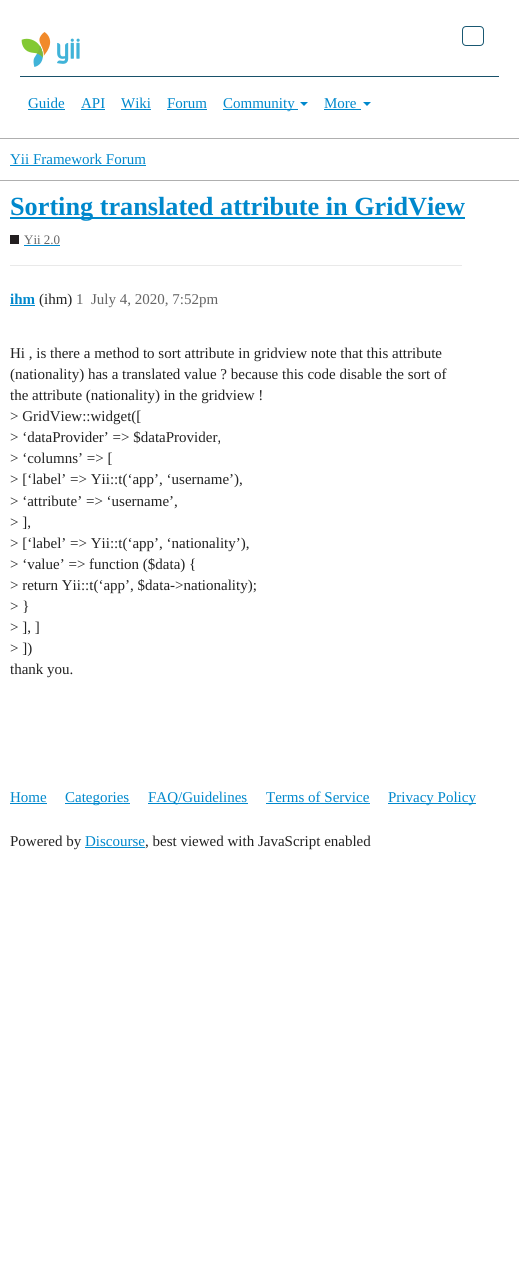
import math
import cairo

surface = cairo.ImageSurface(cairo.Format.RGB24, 519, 1269)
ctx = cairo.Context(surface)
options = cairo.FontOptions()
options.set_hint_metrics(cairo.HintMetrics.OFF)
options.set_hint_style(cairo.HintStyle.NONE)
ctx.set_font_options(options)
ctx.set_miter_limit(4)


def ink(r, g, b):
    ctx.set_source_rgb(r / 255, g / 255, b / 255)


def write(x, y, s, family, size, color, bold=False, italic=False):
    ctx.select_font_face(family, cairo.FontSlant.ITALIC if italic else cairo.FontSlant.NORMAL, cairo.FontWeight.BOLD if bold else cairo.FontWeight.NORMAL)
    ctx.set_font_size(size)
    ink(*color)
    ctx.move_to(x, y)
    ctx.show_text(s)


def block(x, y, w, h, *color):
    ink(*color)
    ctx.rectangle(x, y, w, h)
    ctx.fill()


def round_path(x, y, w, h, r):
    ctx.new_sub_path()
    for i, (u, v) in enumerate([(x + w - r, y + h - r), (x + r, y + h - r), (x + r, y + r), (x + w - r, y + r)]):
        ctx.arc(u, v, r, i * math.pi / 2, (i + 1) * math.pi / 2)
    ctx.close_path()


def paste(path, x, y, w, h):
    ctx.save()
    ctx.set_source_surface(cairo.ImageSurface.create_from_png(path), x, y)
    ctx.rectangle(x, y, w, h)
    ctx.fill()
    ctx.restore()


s1 = dict(family="Liberation Serif", size=15, color=(0, 136, 204))
s2 = dict(family="Liberation Serif", size=26.25, color=(0, 136, 204), bold=True)
s3 = dict(family="Liberation Serif", size=13, color=(100, 100, 100))
s4 = dict(family="Liberation Serif", size=15, color=(0, 136, 204), bold=True)
s5 = dict(family="Liberation Serif", size=15, color=(34, 34, 34))
s6 = dict(family="Liberation Serif", size=15, color=(100, 100, 100))

ink(255, 255, 255)
ctx.paint()
block(0, 138, 519, 1, 175, 175, 175)
paste("pic1.png", 21, 32, 59, 35)
round_path(462.5, 26.5, 21, 19, 3.5)
ink(25, 88, 114)
ctx.set_line_width(1)
ctx.stroke()
block(20, 76, 479, 1, 24, 81, 106)
write(28, 108, "Guide", **s1)
block(28, 109, 37, 1, 0, 136, 204)
write(81, 108, "API", **s1)
block(81, 109, 24, 1, 0, 136, 204)
write(121, 108, "Wiki", **s1)
block(121, 109, 30, 1, 0, 136, 204)
write(167, 108, "Forum", **s1)
block(167, 109, 40, 1, 0, 136, 204)
block(223, 109, 75, 1, 0, 136, 204)
write(223, 108, "Community", **s1)
ctx.new_path()
ctx.move_to(300, 102)
ctx.line_to(308, 102)
ctx.line_to(304, 106)
ctx.close_path()
ctx.fill()
write(324, 108, "More", **s1)
block(324, 109, 37, 1, 0, 136, 204)
ctx.new_path()
ctx.move_to(363, 102)
ctx.line_to(371, 102)
ctx.line_to(367, 106)
ctx.close_path()
ctx.fill()
block(0, 180, 519, 1, 175, 175, 175)
write(10, 164, "Yii Framework Forum", **s1)
block(10, 165, 136, 1, 0, 136, 204)
block(10, 217, 455, 2, 0, 136, 204)
write(10, 215, "Sorting translated attribute in GridView", **s2)
block(10, 235, 9, 9, 35, 31, 32)
write(24, 244, "Yii 2.0", **s3)
block(24, 245, 36, 1, 0, 136, 204)
block(10, 265, 452, 1, 233, 233, 233)
write(10, 304, "ihm", **s4)
block(10, 305, 25, 1, 0, 136, 204)
write(39, 304, "(ihm)", **s5)
write(76, 304, "1", **s6)
write(91, 304, "July 4, 2020, 7:52pm", **s6)
write(10, 358, "Hi , is there a method to sort attribute in gridview note that this attribute", **s5)
write(10, 379, "(nationality) has a translated value ? because this code disable the sort of", **s5)
write(10, 400, "the attribute (nationality) in the gridview !", **s5)
write(10, 421, "> GridView::widget([", **s5)
write(10, 442, "> ‘dataProvider’ => $dataProvider,", **s5)
write(10, 463, "> ‘columns’ => [", **s5)
write(10, 484, "> [‘label’ => Yii::t(‘app’, ‘username’),", **s5)
write(10, 506, "> ‘attribute’ => ‘username’,", **s5)
write(10, 527, "> ],", **s5)
write(10, 548, "> [‘label’ => Yii::t(‘app’, ‘nationality’),", **s5)
write(10, 569, "> ‘value’ => function ($data) {", **s5)
write(10, 590, "> return Yii::t(‘app’, $data->nationality);", **s5)
write(10, 611, "> }", **s5)
write(10, 632, "> ], ]", **s5)
write(10, 653, "> ])", **s5)
write(10, 674, "thank you.", **s5)
write(10, 802, "Home", **s1)
block(10, 803, 37, 1, 0, 136, 204)
block(65, 803, 65, 1, 0, 136, 204)
write(65, 802, "Categories", **s1)
block(148, 803, 100, 1, 0, 136, 204)
write(148, 802, "FAQ/Guidelines", **s1)
write(266, 802, "Terms of Service", **s1)
block(266, 803, 104, 1, 0, 136, 204)
block(388, 803, 88, 1, 0, 136, 204)
write(388, 802, "Privacy Policy", **s1)
write(10, 846, "Powered by", **s5)
write(85, 846, "Discourse", **s1)
block(85, 847, 60, 1, 0, 136, 204)
write(145, 846, ", best viewed with JavaScript enabled", **s5)
surface.write_to_png("screenshot.png")
